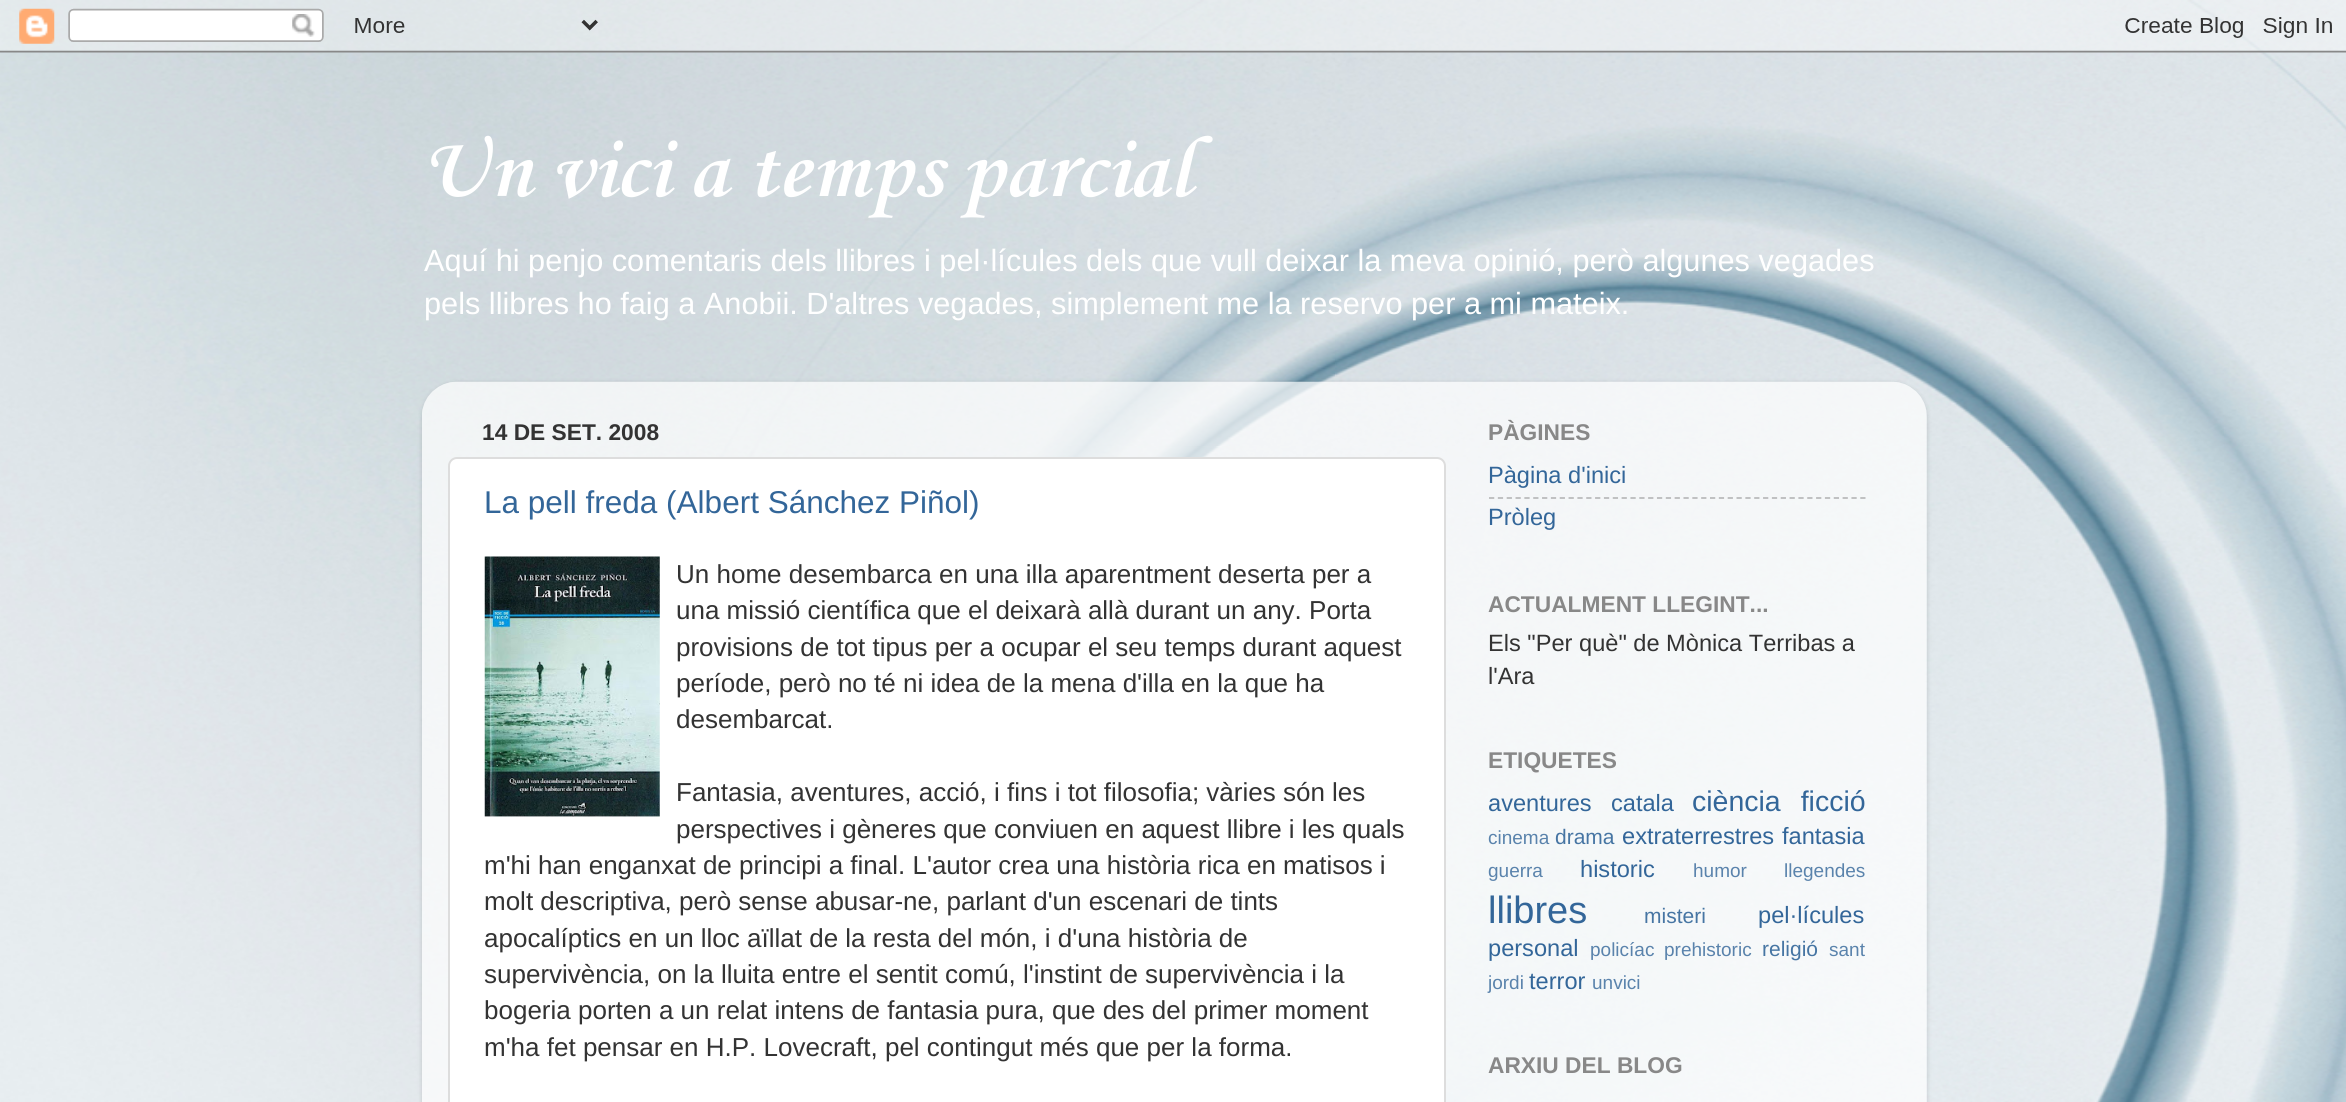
import math
import cairo

surface = cairo.ImageSurface(cairo.Format.RGB24, 2346, 1102)
ctx = cairo.Context(surface)
options = cairo.FontOptions()
options.set_hint_metrics(cairo.HintMetrics.OFF)
options.set_hint_style(cairo.HintStyle.NONE)
ctx.set_font_options(options)
ctx.set_miter_limit(4)


def ink(r, g, b):
    ctx.set_source_rgb(r / 255, g / 255, b / 255)


def write(x, y, s, family, size, color, bold=False, italic=False):
    ctx.select_font_face(family, cairo.FontSlant.ITALIC if italic else cairo.FontSlant.NORMAL, cairo.FontWeight.BOLD if bold else cairo.FontWeight.NORMAL)
    ctx.set_font_size(size)
    ink(*color)
    ctx.move_to(x, y)
    ctx.show_text(s)


def write_spaced(x, y, s, letter, word):
    ctx.move_to(x, y)
    for ch in s:
        ctx.show_text(ch)
        ctx.rel_move_to(letter + word * (ch == ' '), 0)


def round_path(x, y, w, h, r):
    ctx.new_sub_path()
    for i, (u, v) in enumerate([(x + w - r, y + h - r), (x + r, y + h - r), (x + r, y + r), (x + w - r, y + r)]):
        ctx.arc(u, v, r, i * math.pi / 2, (i + 1) * math.pi / 2)
    ctx.close_path()


def blur_box(x, y, w, h, r, blur, alpha):
    ctx.push_group_with_content(cairo.Content.ALPHA)
    ctx.set_operator(cairo.Operator.SOURCE)
    for i in range(15, -16, -2):
        e = blur * i / 6
        if min(w, h) + 2 * e > 0:
            ctx.set_source_rgba(0, 0, 0, alpha * math.erfc((i - 1) / 8.5) / 2)
            round_path(x - e, y - e, w + 2 * e, h + 2 * e, max(0, min(r + e + blur * .6, min(w, h) / 2 + e)))
            ctx.fill()
    ctx.mask(ctx.pop_group())


def paste(path, x, y, w, h):
    ctx.save()
    ctx.set_source_surface(cairo.ImageSurface.create_from_png(path), x, y)
    ctx.rectangle(x, y, w, h)
    ctx.fill()
    ctx.restore()


s1 = dict(family="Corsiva", size=87.5, color=(255, 255, 255), bold=True)
s2 = dict(family="Liberation Sans", size=30.7, color=(255, 255, 255))
s3 = dict(family="Liberation Sans", size=22.75, color=(51, 51, 51), bold=True)
s4 = dict(family="Liberation Sans", size=31.5, color=(51, 102, 153))
s5 = dict(family="Liberation Sans", size=26, color=(51, 51, 51))
s6 = dict(family="Liberation Sans", size=22.75, color=(136, 136, 136), bold=True)
s7 = dict(family="Liberation Sans", size=23.6, color=(51, 102, 153))
s8 = dict(family="Liberation Sans", size=23.6, color=(51, 51, 51))
s9 = dict(family="Liberation Sans", size=19, color=(90, 131, 172))
s10 = dict(family="Liberation Sans", size=21, color=(70, 117, 163))
s11 = dict(family="Liberation Sans", size=38, color=(51, 102, 153))

ink(255, 255, 255)
ctx.paint()
paste("pic1.png", 0, 0, 2346, 1102)
paste("pic2.png", 0, 0, 2346, 53)
write(421, 196, "Un vici a temps parcial", **s1)
write(424, 271, "Aquí hi penjo comentaris dels llibres i pel·lícules dels que vull deixar la meva opinió, però algunes vegades", **s2)
write(424, 314, "pels llibres ho faig a Anobii. D'altres vegades, simplement me la reservo per a mi mateix.", **s2)
ctx.save()
ctx.set_fill_rule(cairo.FillRule.EVEN_ODD)
ctx.new_path()
ctx.move_to(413, 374)
ctx.line_to(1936, 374)
ctx.line_to(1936, 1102)
ctx.line_to(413, 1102)
ctx.close_path()
ctx.move_to(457, 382)
ctx.line_to(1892, 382)
ctx.curve_to(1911.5, 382, 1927, 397.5, 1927, 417)
ctx.line_to(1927, 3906)
ctx.line_to(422, 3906)
ctx.line_to(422, 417)
ctx.curve_to(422, 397.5, 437.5, 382, 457, 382)
ctx.close_path()
ctx.clip()
ink(0, 0, 0)
blur_box(422, 383, 1505, 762, 35, 2.5, 0.15)
ctx.restore()
paste("pic3.png", 422, 381, 1505, 721)
write(482, 440, "14 DE SET. 2008", **s3)
ink(255, 255, 255)
round_path(449, 458, 996, 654, 8)
ctx.fill_preserve()
ink(221, 221, 221)
ctx.stroke()
write(484, 513, "La pell freda (Albert Sánchez Piñol)", **s4)
paste("pic4.png", 484, 556, 176, 261)
write(676, 583, "Un home desembarca en una illa aparentment deserta per a", **s5)
write(676, 619, "una missió científica que el deixarà allà durant un any. Porta", **s5)
write(676, 656, "provisions de tot tipus per a ocupar el seu temps durant aquest", **s5)
write(676, 692, "període, però no té ni idea de la mena d'illa en la que ha", **s5)
write(676, 728, "desembarcat.", **s5)
write(676, 801, "Fantasia, aventures, acció, i fins i tot filosofia; vàries són les", **s5)
write(676, 838, "perspectives i gèneres que conviuen en aquest llibre i les quals", **s5)
write(484, 874, "m'hi han enganxat de principi a final. L'autor crea una història rica en matisos i", **s5)
write(484, 910, "molt descriptiva, però sense abusar-ne, parlant d'un escenari de tints", **s5)
write(484, 947, "apocalíptics en un lloc aïllat de la resta del món, i d'una història de", **s5)
write(484, 983, "supervivència, on la lluita entre el sentit comú, l'instint de supervivència i la", **s5)
write(484, 1019, "bogeria porten a un relat intens de fantasia pura, que des del primer moment", **s5)
write(484, 1056, "m'ha fet pensar en H.P. Lovecraft, pel contingut més que per la forma.", **s5)
write(1488, 440, "PÀGINES", **s6)
write(1488, 483, "Pàgina d'inici", **s7)
ctx.new_path()
ctx.move_to(1489, 498)
ctx.line_to(1865.5, 498)
ink(186, 187, 188)
ctx.set_line_width(1.8)
ctx.set_dash([5.25, 3.59])
ctx.stroke()
write(1488, 525, "Pròleg", **s7)
write(1488, 612, "ACTUALMENT LLEGINT...", **s6)
write(1488, 651, "Els \"Per què\" de Mònica Terribas a", **s8)
write(1488, 684, "l'Ara", **s8)
write(1488, 768, "ETIQUETES", **s6)
write(1488, 811, "aventures", **s7)
write(1611, 811, "catala", **s7)
ctx.set_font_size(28.5)
write_spaced(1692, 811, "ciència ficció", 0, 12)
write(1488, 844, "cinema", **s9)
write(1555, 844, "drama", **s10)
write(1622, 844, "extraterrestres", **s7)
write(1782, 844, "fantasia", **s7)
write(1488, 877, "guerra", **s9)
write(1580, 877, "historic", **s7)
write(1693, 877, "humor", **s9)
write(1784, 877, "llegendes", **s9)
write(1488, 923, "llibres", **s11)
write(1644, 923, "misteri", **s10)
write(1758, 923, "pel·lícules", **s7)
write(1488, 956, "personal", **s7)
write(1590, 956, "policíac", **s9)
write(1664, 956, "prehistoric", **s9)
write(1762, 956, "religió", **s10)
write(1829, 956, "sant", **s9)
write(1488, 989, "jordi", **s9)
write(1529, 989, "terror", **s7)
write(1592, 989, "unvici", **s9)
write(1488, 1073, "ARXIU DEL BLOG", **s6)
surface.write_to_png("screenshot.png")
